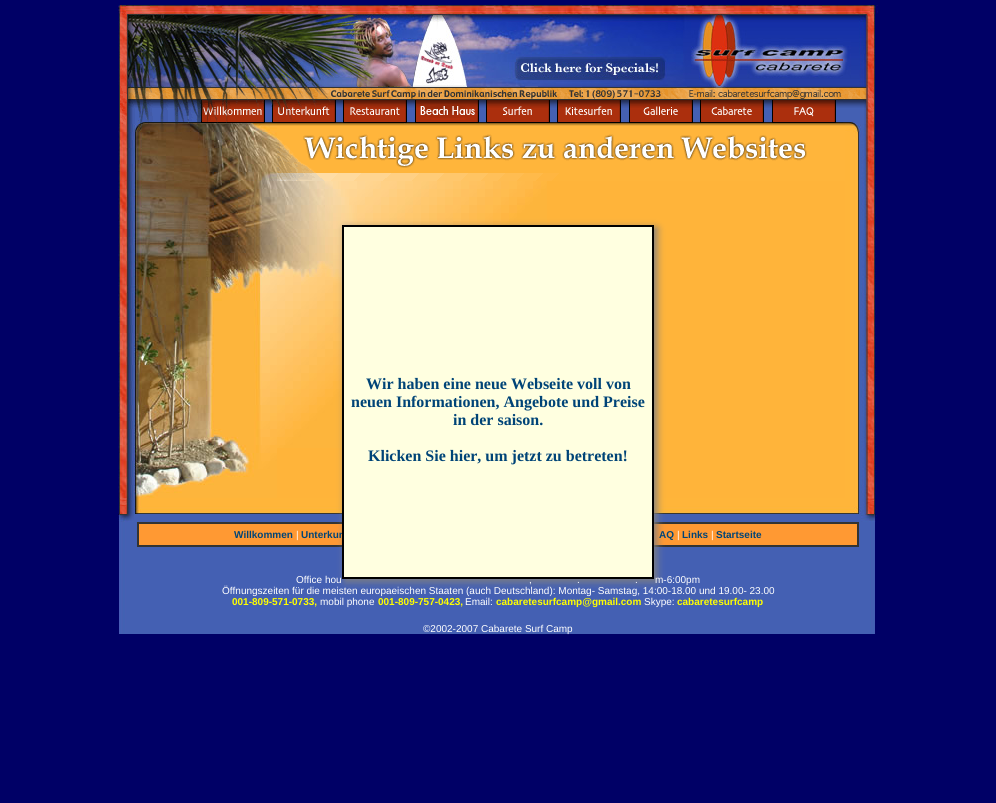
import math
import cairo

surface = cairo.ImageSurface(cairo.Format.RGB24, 996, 803)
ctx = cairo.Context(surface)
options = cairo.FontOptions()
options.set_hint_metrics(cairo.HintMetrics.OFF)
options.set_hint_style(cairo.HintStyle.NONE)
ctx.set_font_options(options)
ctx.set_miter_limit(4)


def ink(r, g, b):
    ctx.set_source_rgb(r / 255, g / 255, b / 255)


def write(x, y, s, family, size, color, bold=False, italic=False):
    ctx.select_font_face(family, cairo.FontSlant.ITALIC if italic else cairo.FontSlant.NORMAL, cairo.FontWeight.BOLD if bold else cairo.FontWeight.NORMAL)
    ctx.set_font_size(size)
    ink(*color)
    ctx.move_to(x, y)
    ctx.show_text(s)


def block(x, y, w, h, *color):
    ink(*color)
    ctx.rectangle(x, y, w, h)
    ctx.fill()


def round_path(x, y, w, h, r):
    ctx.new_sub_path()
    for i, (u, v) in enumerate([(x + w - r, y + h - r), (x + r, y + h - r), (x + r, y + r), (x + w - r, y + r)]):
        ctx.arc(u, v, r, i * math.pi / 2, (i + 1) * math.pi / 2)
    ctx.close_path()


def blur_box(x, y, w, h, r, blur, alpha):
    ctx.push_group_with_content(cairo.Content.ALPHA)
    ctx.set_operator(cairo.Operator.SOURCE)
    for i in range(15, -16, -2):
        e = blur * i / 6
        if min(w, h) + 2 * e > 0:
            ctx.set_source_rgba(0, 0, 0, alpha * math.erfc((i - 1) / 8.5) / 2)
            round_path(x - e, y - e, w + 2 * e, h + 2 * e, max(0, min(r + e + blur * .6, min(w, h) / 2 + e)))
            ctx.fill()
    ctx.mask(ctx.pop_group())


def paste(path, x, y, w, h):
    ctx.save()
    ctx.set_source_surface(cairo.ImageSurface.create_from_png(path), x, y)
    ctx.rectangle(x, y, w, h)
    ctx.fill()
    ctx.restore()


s1 = dict(family="Liberation Sans", size=10, color=(0, 68, 119), bold=True)
s2 = dict(family="Liberation Serif", size=16, color=(0, 68, 119), bold=True)
s3 = dict(family="Liberation Sans", size=10, color=(255, 255, 255))
s4 = dict(family="Liberation Sans", size=10, color=(255, 255, 0), bold=True)

ink(0, 0, 102)
ctx.paint()
block(277, 181, 568, 317, 255, 180, 58)
paste("pic26.png", 277, 181, 270, 267)
block(277, 498, 568, 8, 255, 181, 58)
paste("pic32.png", 277, 506, 568, 16)
paste("pic34.png", 119, 522, 756, 112)
ctx.rectangle(137.5, 522.5, 721, 24)
ink(51, 51, 51)
ctx.set_line_width(1)
ctx.stroke()
ink(255, 153, 51)
ctx.rectangle(138.5, 523.5, 719, 22)
ctx.fill_preserve()
ink(51, 51, 51)
ctx.stroke()
ink(129, 129, 129)
blur_box(345, 228, 312, 354, 0, 4, 1)
write(301, 538, "Unterkun", **s1)
ink(255, 255, 224)
ctx.rectangle(343, 226, 310, 352)
ctx.fill_preserve()
ink(0, 0, 0)
ctx.set_line_width(2)
ctx.stroke()
write(366, 389, "Wir haben eine neue Webseite voll von", **s2)
write(351, 407, "neuen Informationen, Angebote und Preise", **s2)
write(453, 425, "in der saison.", **s2)
write(368, 461, "Klicken Sie hier, um jetzt zu betreten!", **s2)
paste("pic1.png", 118, 5, 760, 9)
paste("pic2.png", 118, 14, 390, 72)
paste("pic3.png", 508, 14, 175, 72)
paste("pic4.png", 683, 14, 192, 72)
paste("pic5.png", 119, 86, 568, 13)
paste("pic6.png", 687, 86, 156, 13)
paste("pic7.png", 843, 86, 32, 13)
paste("pic8.png", 119, 99, 81, 25)
paste("pic9.png", 200, 99, 65, 25)
paste("pic10.png", 265, 99, 6, 25)
paste("pic11.png", 271, 99, 65, 25)
paste("pic12.png", 336, 99, 6, 25)
paste("pic13.png", 342, 99, 65, 25)
paste("pic14.png", 407, 99, 7, 25)
paste("pic15.png", 414, 99, 65, 25)
paste("pic12.png", 479, 99, 6, 25)
paste("pic16.png", 485, 99, 65, 25)
paste("pic12.png", 550, 99, 6, 25)
paste("pic17.png", 556, 99, 65, 25)
paste("pic14.png", 621, 99, 7, 25)
paste("pic18.png", 628, 99, 65, 25)
paste("pic12.png", 693, 99, 6, 25)
paste("pic19.png", 699, 99, 65, 25)
paste("pic14.png", 764, 99, 7, 25)
paste("pic20.png", 771, 99, 65, 25)
paste("pic14.png", 836, 99, 7, 25)
paste("pic21.png", 843, 99, 32, 25)
paste("pic22.png", 118, 124, 159, 57)
paste("pic23.png", 277, 124, 568, 57)
paste("pic24.png", 845, 124, 31, 57)
paste("pic25.png", 118, 181, 159, 317)
paste("pic27.png", 845, 181, 16, 317)
paste("pic28.png", 861, 181, 16, 317)
paste("pic29.png", 119, 498, 158, 8)
paste("pic30.png", 845, 498, 30, 8)
paste("pic31.png", 118, 506, 159, 16)
paste("pic33.png", 845, 506, 32, 16)
write(234, 538, "Willkommen", **s1)
write(296, 538, "|", **s3)
write(659, 538, "AQ", **s1)
write(677, 538, "|", **s3)
write(682, 538, "Links", **s1)
write(711, 538, "|", **s3)
write(716, 538, "Startseite", **s1)
write(296, 583, "Office hou", **s3)
write(529, 583, ",", **s3)
write(577, 583, ".", **s3)
write(635, 583, ".", **s3)
write(655, 583, "m-6:00pm", **s3)
write(222, 594, "Öffnungszeiten für die meisten europaeischen Staaten (auch Deutschland): Montag- Samstag, 14:00-18.00 und 19.00- 23.00", **s3)
write(232, 605, "001-809-571-0733,", **s4)
write(320, 605, "mobil phone", **s3)
write(378, 605, "001-809-757-0423,", **s4)
write(465, 605, "Email:", **s3)
write(496, 605, "cabaretesurfcamp@gmail.com", **s4)
write(644, 605, "Skype:", **s3)
write(677, 605, "cabaretesurfcamp", **s4)
write(423, 632, "©2002-2007 Cabarete Surf Camp", **s3)
surface.write_to_png("screenshot.png")
